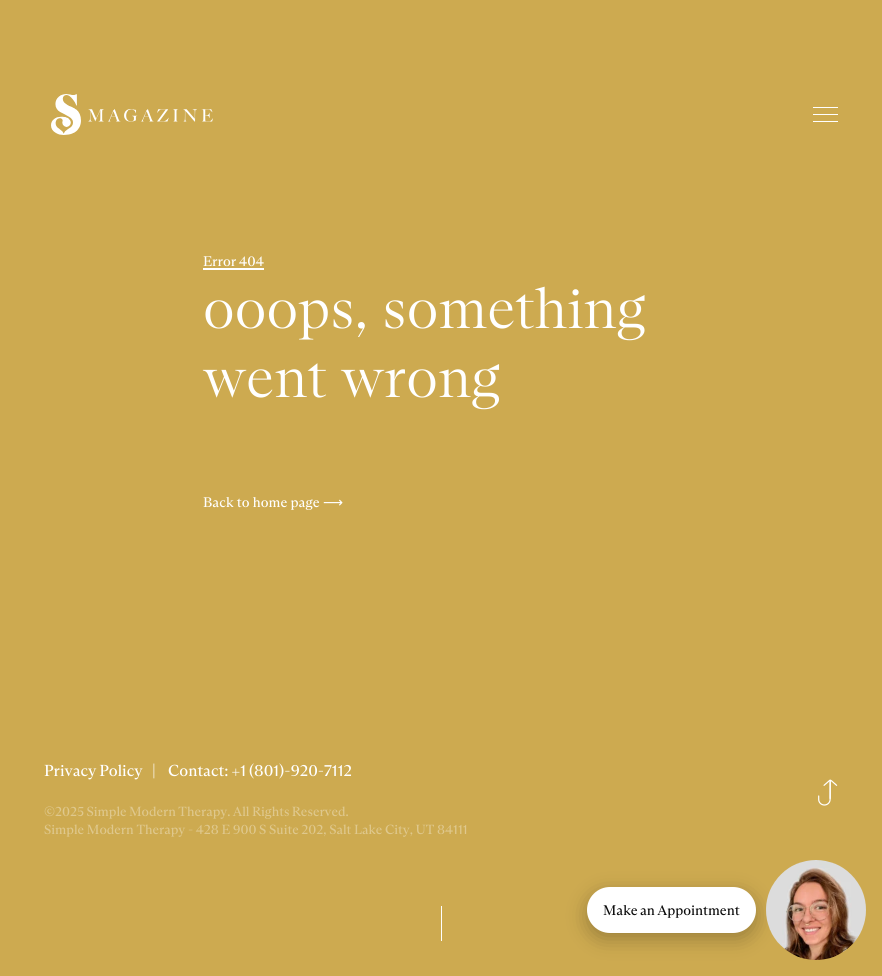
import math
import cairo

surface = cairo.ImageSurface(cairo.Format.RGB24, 882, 976)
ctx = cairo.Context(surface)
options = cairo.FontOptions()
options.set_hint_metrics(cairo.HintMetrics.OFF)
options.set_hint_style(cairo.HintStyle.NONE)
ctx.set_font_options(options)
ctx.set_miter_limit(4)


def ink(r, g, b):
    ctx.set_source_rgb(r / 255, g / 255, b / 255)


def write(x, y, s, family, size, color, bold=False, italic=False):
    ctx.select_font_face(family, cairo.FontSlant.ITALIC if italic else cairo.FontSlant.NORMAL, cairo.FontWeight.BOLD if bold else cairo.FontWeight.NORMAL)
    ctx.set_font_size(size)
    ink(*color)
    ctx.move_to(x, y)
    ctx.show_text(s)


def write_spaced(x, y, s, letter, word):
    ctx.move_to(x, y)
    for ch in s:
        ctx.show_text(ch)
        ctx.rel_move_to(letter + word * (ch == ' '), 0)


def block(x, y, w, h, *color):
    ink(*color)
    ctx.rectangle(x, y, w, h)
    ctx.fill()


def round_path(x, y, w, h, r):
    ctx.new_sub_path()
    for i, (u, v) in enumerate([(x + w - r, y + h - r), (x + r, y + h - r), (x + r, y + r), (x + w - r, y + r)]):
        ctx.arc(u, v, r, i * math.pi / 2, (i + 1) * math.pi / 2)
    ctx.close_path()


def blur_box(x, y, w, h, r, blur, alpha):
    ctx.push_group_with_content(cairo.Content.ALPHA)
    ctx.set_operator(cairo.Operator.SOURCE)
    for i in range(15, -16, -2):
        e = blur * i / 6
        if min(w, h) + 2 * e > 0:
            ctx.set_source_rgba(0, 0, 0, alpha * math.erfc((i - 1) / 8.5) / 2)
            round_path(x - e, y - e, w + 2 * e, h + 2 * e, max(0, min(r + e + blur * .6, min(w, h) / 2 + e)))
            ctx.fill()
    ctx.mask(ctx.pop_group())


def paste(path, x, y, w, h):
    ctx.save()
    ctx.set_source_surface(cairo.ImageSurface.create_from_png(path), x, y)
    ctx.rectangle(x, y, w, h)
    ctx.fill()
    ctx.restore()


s1 = dict(family="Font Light", size=57.75, color=(255, 255, 255))
s2 = dict(family="Font", size=14, color=(255, 255, 255))
s3 = dict(family="DejaVu Sans", size=14, color=(255, 255, 255))
s4 = dict(family="Font", size=16, color=(255, 255, 255))

ink(205, 170, 80)
ctx.paint()
paste("pic1.png", 51, 94, 162, 41)
block(813, 107, 25, 1, 255, 255, 255)
block(813, 114, 25, 1, 255, 255, 255)
block(813, 121, 25, 1, 255, 255, 255)
block(203, 268, 61, 2, 255, 255, 255)
ctx.select_font_face("Font")
ctx.set_font_size(14)
write_spaced(203, 266, "Error 404", 0, -1)
write(203, 328, "ooops, something", **s1)
write(203, 397, "went wrong", **s1)
write(203, 507, "Back to home page", **s2)
write(323, 507, "⟶", **s3)
block(441, 906, 1, 35, 255, 255, 255)
ctx.select_font_face("Font")
ctx.set_font_size(16)
write_spaced(44, 776, "Privacy Policy", 0, -1)
write(152, 776, "|", **s4)
write_spaced(168, 776, "Contact: +1 (801)-920-7112", 0, -1)
ctx.set_font_size(13.3)
ink(223, 200, 141)
write_spaced(44, 816, "©2025 Simple Modern Therapy. All Rights Reserved.", 0, -0.75)
write_spaced(44, 834, "Simple Modern Therapy - 428 E 900 S Suite 202, Salt Lake City, UT 84111", 0, -0.5)
paste("pic2.png", 818, 779, 20, 27)
ink(0, 0, 0)
blur_box(587, 893, 169, 46, 23, 10, 0.25)
ink(255, 255, 255)
round_path(587, 887, 169, 46, 23)
ctx.fill()
ctx.set_font_size(14)
ink(11, 11, 11)
write_spaced(603, 915, "Make an Appointment", 0, -1)
paste("pic3.png", 766, 860, 100, 100)
surface.write_to_png("screenshot.png")
